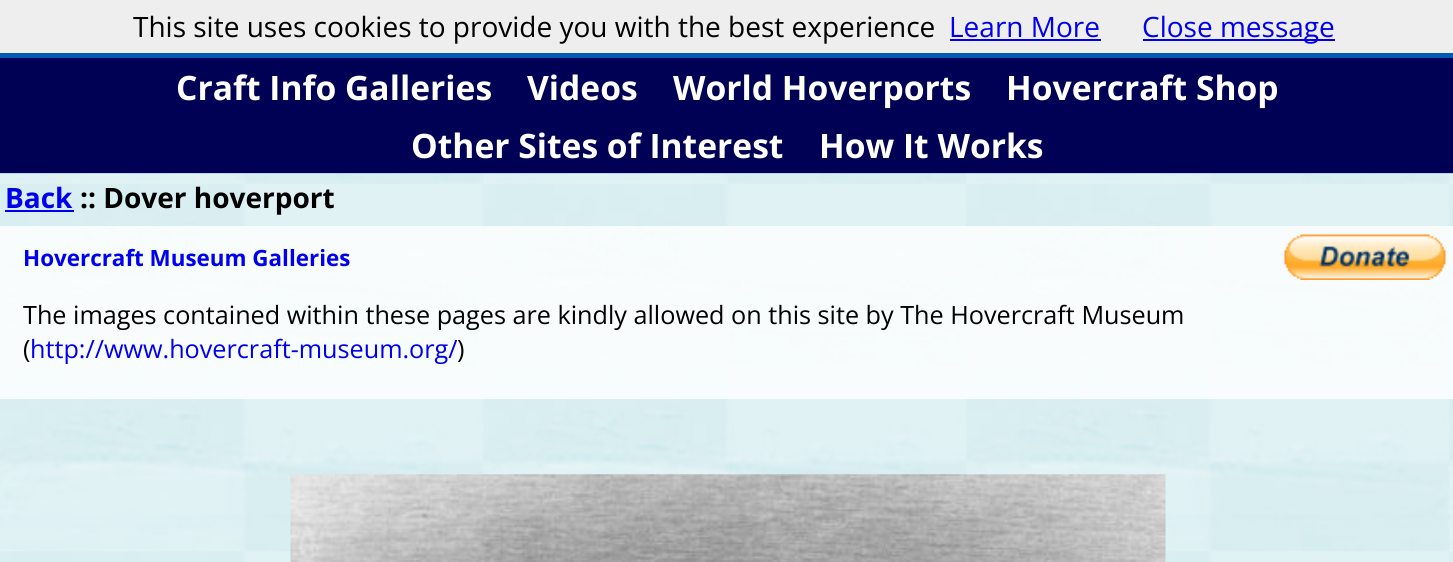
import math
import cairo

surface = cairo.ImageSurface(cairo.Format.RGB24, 1453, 562)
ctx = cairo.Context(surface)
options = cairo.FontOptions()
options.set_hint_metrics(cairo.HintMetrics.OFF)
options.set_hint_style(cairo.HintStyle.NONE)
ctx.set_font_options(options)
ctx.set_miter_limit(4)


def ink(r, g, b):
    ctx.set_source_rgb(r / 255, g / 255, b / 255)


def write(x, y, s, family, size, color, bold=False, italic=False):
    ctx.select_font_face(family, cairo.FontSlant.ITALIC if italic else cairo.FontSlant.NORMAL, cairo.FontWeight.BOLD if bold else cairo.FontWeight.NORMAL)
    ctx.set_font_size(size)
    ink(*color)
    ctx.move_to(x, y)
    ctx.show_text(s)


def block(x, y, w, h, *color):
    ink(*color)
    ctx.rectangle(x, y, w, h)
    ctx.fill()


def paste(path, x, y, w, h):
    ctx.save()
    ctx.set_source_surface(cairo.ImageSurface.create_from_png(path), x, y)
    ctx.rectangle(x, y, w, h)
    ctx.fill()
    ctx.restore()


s1 = dict(family="Open Sans", size=28, color=(0, 0, 0))
s2 = dict(family="Open Sans", size=28, color=(0, 0, 238))
s3 = dict(family="Open Sans", size=33.6, color=(255, 255, 255), bold=True)
s4 = dict(family="Open Sans", size=28, color=(0, 0, 238), bold=True)
s5 = dict(family="Open Sans", size=28, color=(0, 0, 0), bold=True)
s6 = dict(family="Open Sans", size=22.4, color=(0, 0, 238), bold=True)
s7 = dict(family="Open Sans", size=25.2, color=(0, 0, 0))
s8 = dict(family="Open Sans", size=25.2, color=(0, 0, 238))

ink(255, 255, 255)
ctx.paint()
paste("pic1.png", 0, 173, 1453, 389)
block(0, 0, 1453, 53, 238, 238, 238)
write(133, 37, "This site uses cookies to provide you with the best experience", **s1)
write(949, 37, "Learn More", **s2)
block(950, 39, 151, 2, 0, 0, 238)
block(1143, 39, 192, 2, 0, 0, 238)
write(1142, 37, "Close message", **s2)
paste("pic2.png", 0, 173, 1453, 1)
block(0, 53, 1453, 5, 0, 89, 179)
block(0, 58, 1453, 115, 0, 0, 85)
write(176, 100, "Craft Info Galleries", **s3)
write(527, 100, "Videos", **s3)
write(673, 100, "World Hoverports", **s3)
write(1006, 100, "Hovercraft Shop", **s3)
write(411, 158, "Other Sites of Interest", **s3)
write(819, 158, "How It Works", **s3)
write(5, 208, "Back", **s4)
block(5, 210, 69, 2, 0, 0, 238)
write(80, 208, ":: Dover hoverport", **s5)
ctx.set_source_rgba(1, 1, 1, 0.8)
ctx.rectangle(0, 226, 1453, 173)
ctx.fill()
write(23, 266, "Hovercraft Museum Galleries", **s6)
paste("pic3.png", 1284, 234, 162, 46)
write(23, 324, "The images contained within these pages are kindly allowed on this site by The Hovercraft Museum", **s7)
write(23, 358, "(", **s7)
write(30, 358, "http://www.hovercraft-museum.org/", **s8)
write(457, 358, ")", **s7)
paste("pic4.png", 290, 474, 876, 88)
surface.write_to_png("screenshot.png")
